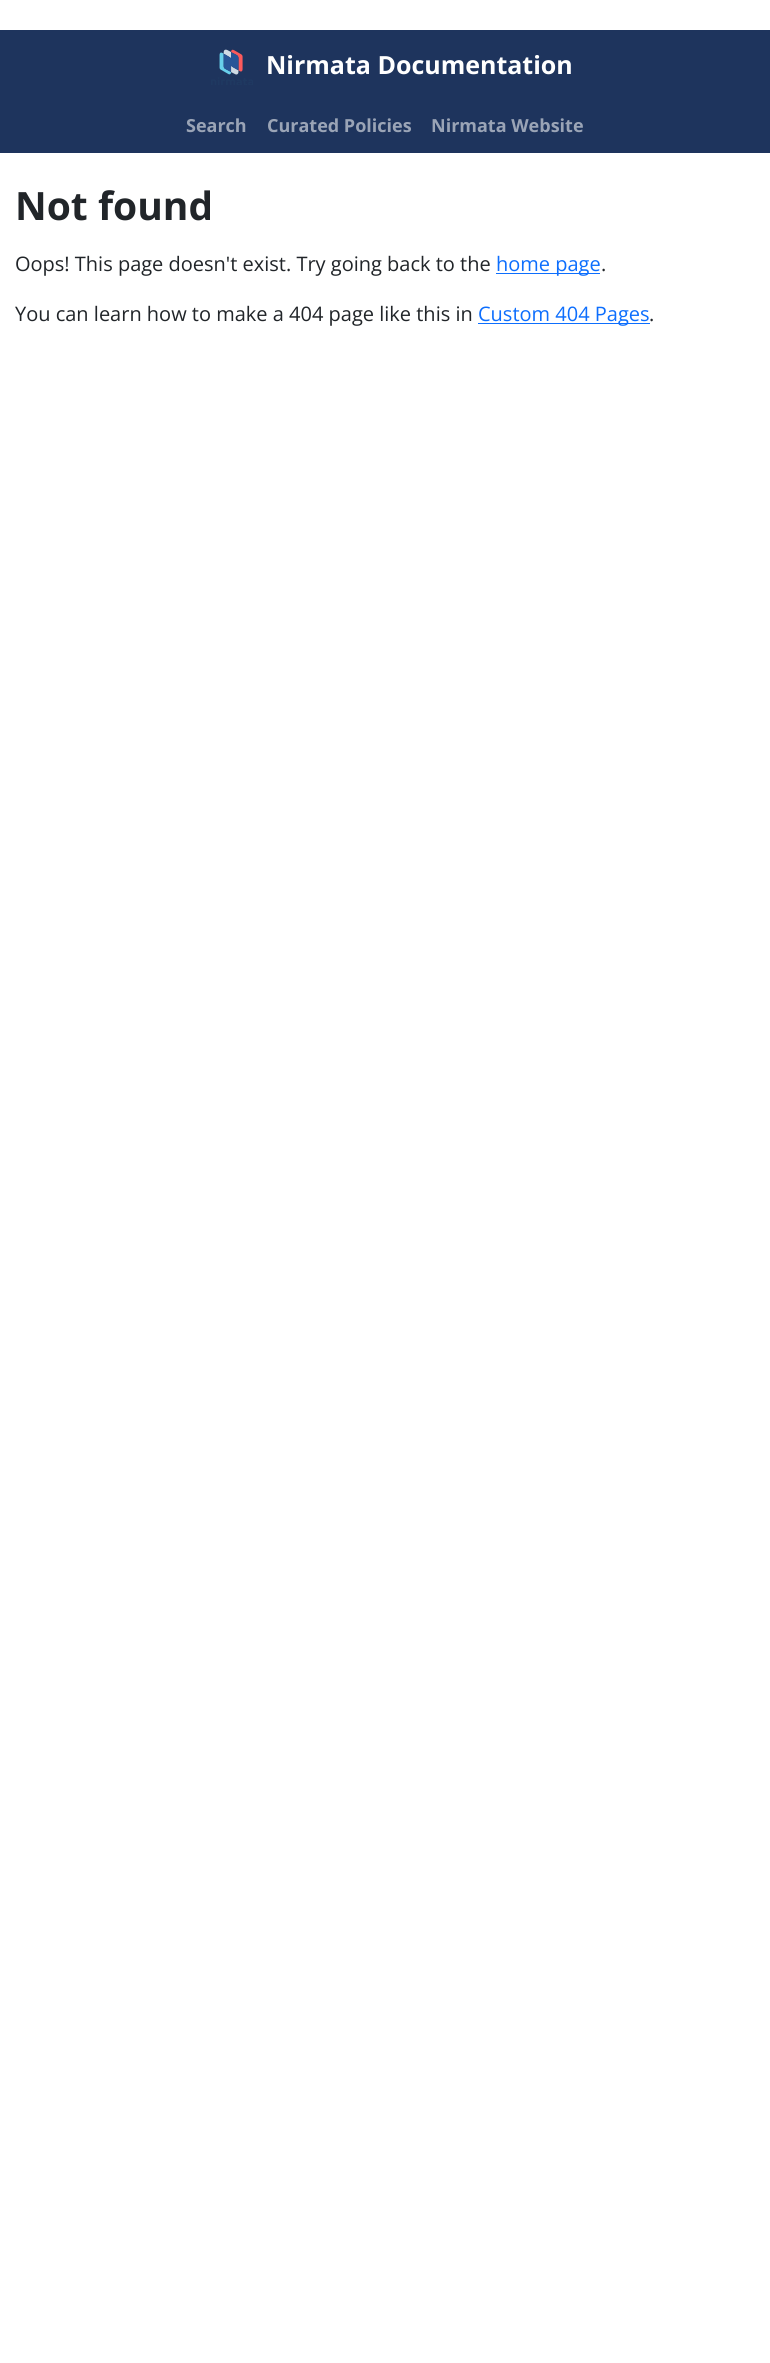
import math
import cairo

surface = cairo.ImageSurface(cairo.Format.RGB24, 770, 2363)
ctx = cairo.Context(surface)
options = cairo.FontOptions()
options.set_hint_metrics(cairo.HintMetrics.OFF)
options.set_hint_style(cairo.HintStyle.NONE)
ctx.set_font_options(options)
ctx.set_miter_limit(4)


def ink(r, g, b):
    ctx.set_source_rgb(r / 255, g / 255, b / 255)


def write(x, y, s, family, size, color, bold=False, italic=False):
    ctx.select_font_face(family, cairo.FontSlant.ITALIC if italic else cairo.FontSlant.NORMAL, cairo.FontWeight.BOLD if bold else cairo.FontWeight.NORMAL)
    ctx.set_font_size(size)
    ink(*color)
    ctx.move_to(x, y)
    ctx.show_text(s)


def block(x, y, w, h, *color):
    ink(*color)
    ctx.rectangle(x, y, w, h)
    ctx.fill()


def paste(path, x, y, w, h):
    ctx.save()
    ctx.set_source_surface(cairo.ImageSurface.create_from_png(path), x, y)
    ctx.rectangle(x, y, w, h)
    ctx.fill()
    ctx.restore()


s1 = dict(family="Open Sans", size=25, color=(255, 255, 255), bold=True)
s2 = dict(family="Open Sans", size=18, color=(154, 164, 182), bold=True)
s3 = dict(family="Open Sans", size=39, color=(33, 37, 41), bold=True)
s4 = dict(family="Open Sans", size=20, color=(33, 37, 41))
s5 = dict(family="Open Sans", size=20, color=(13, 110, 253))

ink(255, 255, 255)
ctx.paint()
block(0, 30, 770, 123, 30, 52, 93)
paste("pic1.png", 211, 49, 42, 36)
write(266, 74, "Nirmata Documentation", **s1)
write(186, 132, "Search", **s2)
write(267, 132, "Curated Policies", **s2)
write(431, 132, "Nirmata Website", **s2)
write(15, 220, "Not found", **s3)
write(15, 271, "Oops! This page doesn't exist. Try going back to the", **s4)
block(496, 273, 104, 1, 13, 110, 253)
write(496, 271, "home page", **s5)
write(601, 271, ".", **s4)
write(15, 321, "You can learn how to make a 404 page like this in", **s4)
block(478, 323, 172, 1, 13, 110, 253)
write(478, 321, "Custom 404 Pages", **s5)
write(649, 321, ".", **s4)
surface.write_to_png("screenshot.png")
